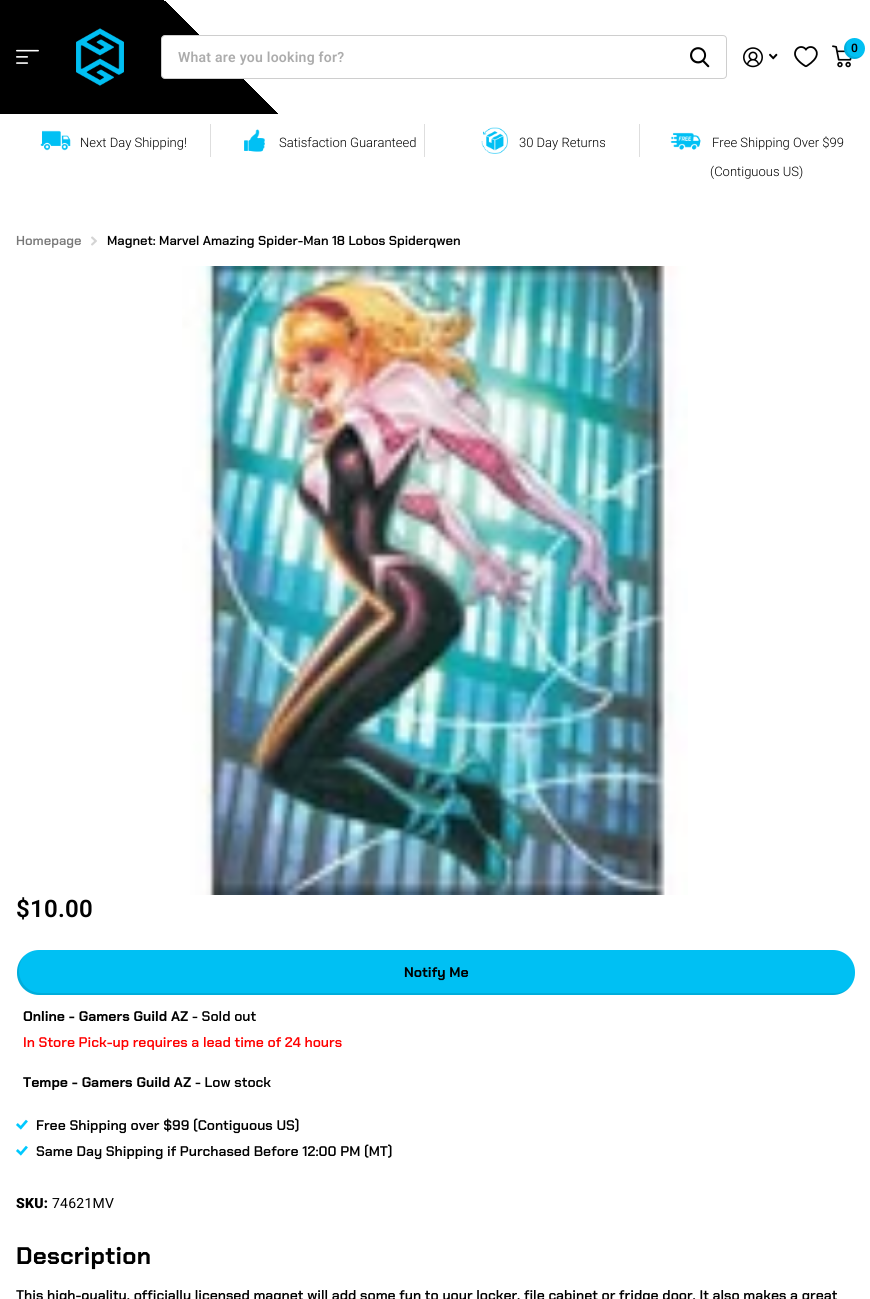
import math
import cairo

surface = cairo.ImageSurface(cairo.Format.RGB24, 870, 1299)
ctx = cairo.Context(surface)
options = cairo.FontOptions()
options.set_hint_metrics(cairo.HintMetrics.OFF)
options.set_hint_style(cairo.HintStyle.NONE)
ctx.set_font_options(options)
ctx.set_miter_limit(4)


def ink(r, g, b):
    ctx.set_source_rgb(r / 255, g / 255, b / 255)


def write(x, y, s, family, size, color, bold=False, italic=False):
    ctx.select_font_face(family, cairo.FontSlant.ITALIC if italic else cairo.FontSlant.NORMAL, cairo.FontWeight.BOLD if bold else cairo.FontWeight.NORMAL)
    ctx.set_font_size(size)
    ink(*color)
    ctx.move_to(x, y)
    ctx.show_text(s)


def write_spaced(x, y, s, letter, word):
    ctx.move_to(x, y)
    for ch in s:
        ctx.show_text(ch)
        ctx.rel_move_to(letter + word * (ch == ' '), 0)


def block(x, y, w, h, *color):
    ink(*color)
    ctx.rectangle(x, y, w, h)
    ctx.fill()


def round_path(x, y, w, h, r):
    ctx.new_sub_path()
    for i, (u, v) in enumerate([(x + w - r, y + h - r), (x + r, y + h - r), (x + r, y + r), (x + w - r, y + r)]):
        ctx.arc(u, v, r, i * math.pi / 2, (i + 1) * math.pi / 2)
    ctx.close_path()


def paste(path, x, y, w, h):
    ctx.save()
    ctx.set_source_surface(cairo.ImageSurface.create_from_png(path), x, y)
    ctx.rectangle(x, y, w, h)
    ctx.fill()
    ctx.restore()


s1 = dict(family="Archivo SemiBold", size=12, color=(0, 0, 0))
s2 = dict(family="Roboto Light", size=13, color=(0, 0, 0))
s3 = dict(family="Chakra Petch SemiBold", size=13, color=(120, 120, 120))
s4 = dict(family="Chakra Petch SemiBold", size=13, color=(0, 0, 0))
s5 = dict(family="Chakra Petch", size=14, color=(0, 0, 0), bold=True)
s6 = dict(family="Chakra Petch SemiBold", size=14, color=(0, 0, 0))
s7 = dict(family="Chakra Petch SemiBold", size=14, color=(255, 0, 0))

ink(255, 255, 255)
ctx.paint()
gradient = cairo.LinearGradient(168, 325, 703, -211)
gradient.add_color_stop_rgba(0.3, 0, 0, 0, 1)
gradient.add_color_stop_rgba(0.3, 1, 1, 1, 1)
gradient.add_color_stop_rgba(1, 1, 1, 1, 1)
ctx.set_source(gradient)
ctx.rectangle(0, 0, 278, 114)
ctx.fill()
paste("pic1.png", 76, 28, 48, 58)
paste("pic2.png", 743, 47, 20, 21)
paste("pic3.png", 769, 53, 9, 7)
paste("pic4.png", 794, 46, 24, 22)
paste("pic5.png", 832, 45, 20, 23)
ink(0, 192, 243)
ctx.arc(854.5, 48.5, 10.5, 0, 2 * math.pi)
ctx.fill()
ctx.set_source_rgba(0, 0, 0, 0.1)
ctx.new_path()
ctx.move_to(863, 54.5)
ctx.curve_to(861.5, 56, 859, 57, 856, 57)
ctx.curve_to(847, 57, 844, 46.5, 848, 40.5)
ctx.curve_to(843, 44, 842.5, 51.5, 847, 56)
ctx.curve_to(851.5, 60.5, 859.5, 60, 863, 54.5)
ctx.close_path()
ctx.fill()
write(851, 52, "0", **s1)
paste("pic6.png", 16, 49, 23, 15)
ink(255, 255, 255)
round_path(161.5, 35.5, 565, 43, 3.5)
ctx.fill_preserve()
ink(206, 206, 206)
ctx.set_line_width(1)
ctx.stroke()
ctx.select_font_face("Roboto SemiBold")
ctx.set_font_size(14)
ink(172, 172, 172)
write_spaced(178, 62, "What are you looking for?", 0.25, 0)
paste("pic7.png", 690, 47, 20, 21)
block(210, 124, 1, 33, 222, 222, 222)
paste("pic8.png", 40, 130, 31, 21)
write(80, 147, "Next Day Shipping!", **s2)
block(424, 124, 1, 33, 222, 222, 222)
paste("pic9.png", 244, 129, 21, 23)
write(279, 147, "Satisfaction Guaranteed", **s2)
block(639, 124, 1, 33, 222, 222, 222)
paste("pic10.png", 481, 127, 27, 27)
write(519, 147, "30 Day Returns", **s2)
paste("pic11.png", 670, 132, 31, 18)
write(712, 147, "Free Shipping Over $99", **s2)
write(710, 176, "(Contiguous US)", **s2)
write(16, 245, "Homepage", **s3)
paste("pic12.png", 91, 236, 6, 10)
write(107, 245, "Magnet: Marvel Amazing Spider-Man 18 Lobos Spiderqwen", **s4)
paste("pic13.png", 182, 266, 506, 629)
ctx.select_font_face("Roboto SemiBold")
ctx.set_font_size(24)
write_spaced(16, 917, "$10.00", 0.25, 0)
ink(0, 192, 243)
round_path(17, 950, 838, 45, 22)
ctx.fill()
ctx.set_source_rgba(0, 0, 0, 0.1)
ctx.new_path()
ctx.move_to(25, 955)
ctx.curve_to(20, 959, 17, 965, 17, 972)
ctx.line_to(17, 973)
ctx.curve_to(17, 985, 27, 995, 39, 995)
ctx.line_to(833, 995)
ctx.curve_to(840, 995, 846, 992, 850, 987)
ctx.curve_to(846, 991, 841, 993, 835, 993)
ctx.line_to(41, 993)
ctx.curve_to(21, 993, 12, 969, 25, 955)
ctx.close_path()
ctx.fill()
write(404, 977, "Notify Me", **s5)
write(23, 1021, "Online - Gamers Guild AZ", **s5)
write(192, 1021, "- Sold out", **s6)
write(23, 1047, "In Store Pick-up requires a lead time of 24 hours", **s7)
write(23, 1087, "Tempe - Gamers Guild AZ", **s5)
write(195, 1087, "- Low stock", **s6)
paste("pic14.png", 16, 1119, 12, 11)
write(36, 1130, "Free Shipping over $99 (Contiguous US)", **s6)
paste("pic14.png", 16, 1145, 12, 11)
write(36, 1156, "Same Day Shipping if Purchased Before 12:00 PM (MT)", **s6)
ctx.select_font_face("Roboto Black")
write_spaced(16, 1208, "SKU:", 0.25, 0)
ctx.select_font_face("Roboto")
write_spaced(52, 1208, "74621MV", 0.25, 0)
ctx.select_font_face("Chakra Petch", cairo.FontSlant.NORMAL, cairo.FontWeight.BOLD)
ctx.set_font_size(24)
write_spaced(16, 1264, "Description", 0.25, 0)
write(16, 1300, "This high-quality, officially licensed magnet will add some fun to your locker, file cabinet or fridge door. It also makes a great", **s6)
surface.write_to_png("screenshot.png")
